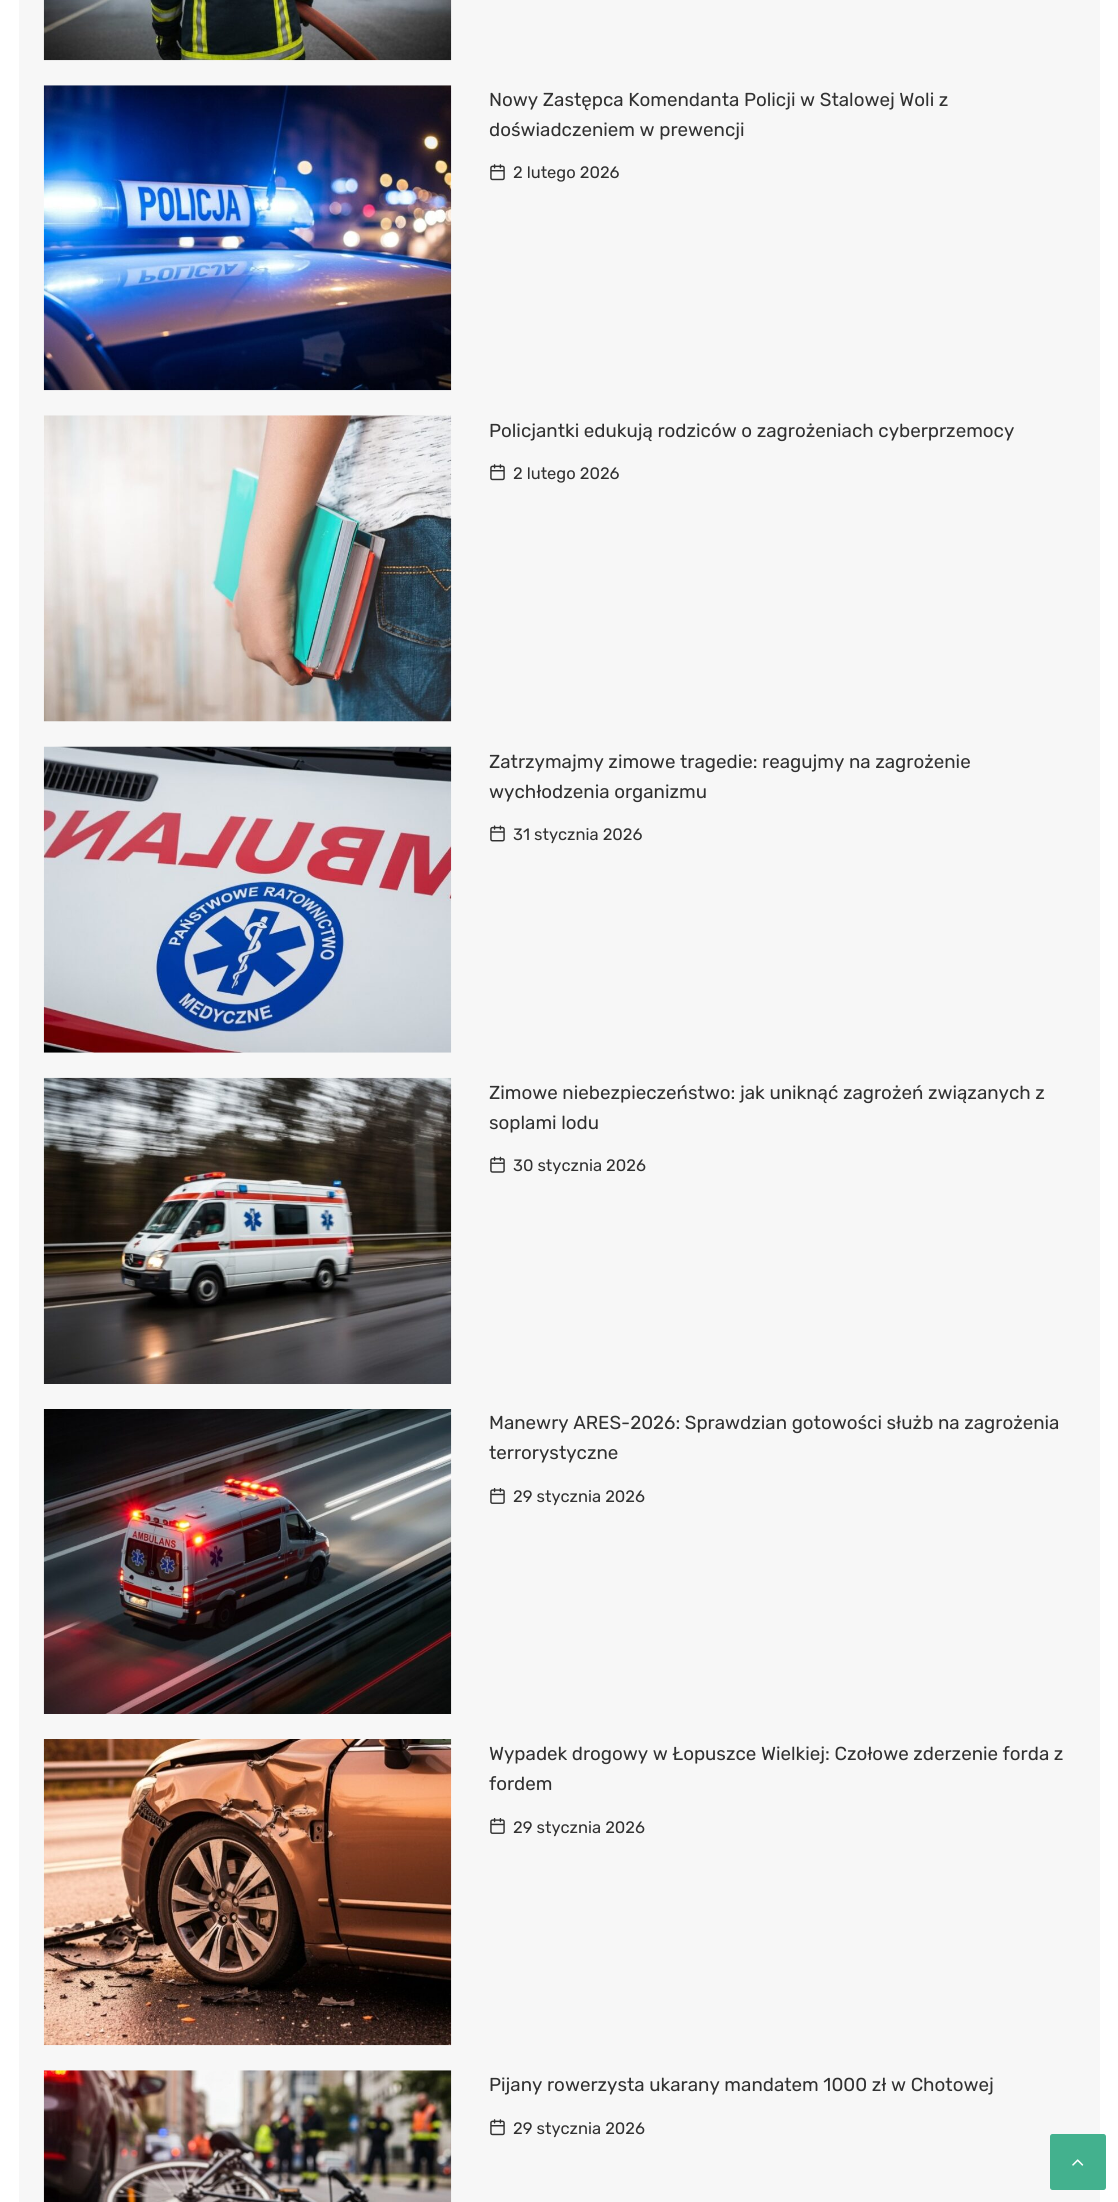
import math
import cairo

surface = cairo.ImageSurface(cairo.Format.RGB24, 1118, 2202)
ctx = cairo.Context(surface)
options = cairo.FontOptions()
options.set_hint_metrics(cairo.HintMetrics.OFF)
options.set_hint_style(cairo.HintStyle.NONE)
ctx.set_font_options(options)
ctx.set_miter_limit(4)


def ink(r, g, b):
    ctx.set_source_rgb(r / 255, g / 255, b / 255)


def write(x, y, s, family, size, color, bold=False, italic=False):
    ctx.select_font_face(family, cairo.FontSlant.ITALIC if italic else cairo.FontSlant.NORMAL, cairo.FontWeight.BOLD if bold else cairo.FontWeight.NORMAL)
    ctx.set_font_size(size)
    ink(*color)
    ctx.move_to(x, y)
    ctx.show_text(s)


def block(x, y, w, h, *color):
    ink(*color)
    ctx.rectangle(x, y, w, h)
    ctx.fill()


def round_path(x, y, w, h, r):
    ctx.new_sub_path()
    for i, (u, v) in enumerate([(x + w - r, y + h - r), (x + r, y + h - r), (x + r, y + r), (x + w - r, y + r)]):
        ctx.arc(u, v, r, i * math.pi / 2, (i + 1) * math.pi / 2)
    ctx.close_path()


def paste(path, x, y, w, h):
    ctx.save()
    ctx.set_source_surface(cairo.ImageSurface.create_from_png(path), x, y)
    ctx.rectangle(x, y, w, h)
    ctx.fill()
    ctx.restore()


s1 = dict(family="Rubik", size=18.75, color=(49, 49, 49))
s2 = dict(family="Rubik", size=16.5, color=(49, 49, 49))

ink(255, 255, 255)
ctx.paint()
block(19, 0, 1081, 2202, 247, 247, 247)
paste("pic1.png", 43, 0, 409, 61)
paste("pic2.png", 43, 85, 409, 306)
write(489, 106, "Nowy Zastępca Komendanta Policji w Stalowej Woli z", **s1)
write(489, 136, "doświadczeniem w prewencji", **s1)
paste("pic3.png", 490, 164, 15, 17)
write(513, 178, "2 lutego 2026", **s2)
paste("pic4.png", 43, 415, 409, 307)
write(489, 437, "Policjantki edukują rodziców o zagrożeniach cyberprzemocy", **s1)
paste("pic3.png", 490, 464, 15, 17)
write(513, 479, "2 lutego 2026", **s2)
paste("pic5.png", 43, 746, 409, 307)
write(489, 768, "Zatrzymajmy zimowe tragedie: reagujmy na zagrożenie", **s1)
write(489, 798, "wychłodzenia organizmu", **s1)
paste("pic6.png", 490, 825, 15, 17)
write(513, 840, "31 stycznia 2026", **s2)
paste("pic7.png", 43, 1077, 409, 307)
write(489, 1099, "Zimowe niebezpieczeństwo: jak uniknąć zagrożeń związanych z", **s1)
write(489, 1129, "soplami lodu", **s1)
paste("pic8.png", 490, 1156, 15, 17)
write(513, 1171, "30 stycznia 2026", **s2)
paste("pic9.png", 43, 1409, 409, 305)
write(489, 1429, "Manewry ARES-2026: Sprawdzian gotowości służb na zagrożenia", **s1)
write(489, 1459, "terrorystyczne", **s1)
paste("pic10.png", 490, 1488, 15, 16)
write(513, 1502, "29 stycznia 2026", **s2)
paste("pic11.png", 43, 1739, 409, 307)
write(489, 1760, "Wypadek drogowy w Łopuszce Wielkiej: Czołowe zderzenie forda z", **s1)
write(489, 1790, "fordem", **s1)
paste("pic10.png", 490, 1818, 15, 16)
write(513, 1833, "29 stycznia 2026", **s2)
paste("pic12.png", 43, 2070, 409, 132)
write(489, 2091, "Pijany rowerzysta ukarany mandatem 1000 zł w Chotowej", **s1)
paste("pic3.png", 490, 2119, 15, 17)
write(513, 2134, "29 stycznia 2026", **s2)
ink(67, 177, 142)
round_path(1050, 2134, 56, 56, 2.5)
ctx.fill()
paste("pic13.png", 1072, 2159, 12, 7)
surface.write_to_png("screenshot.png")
